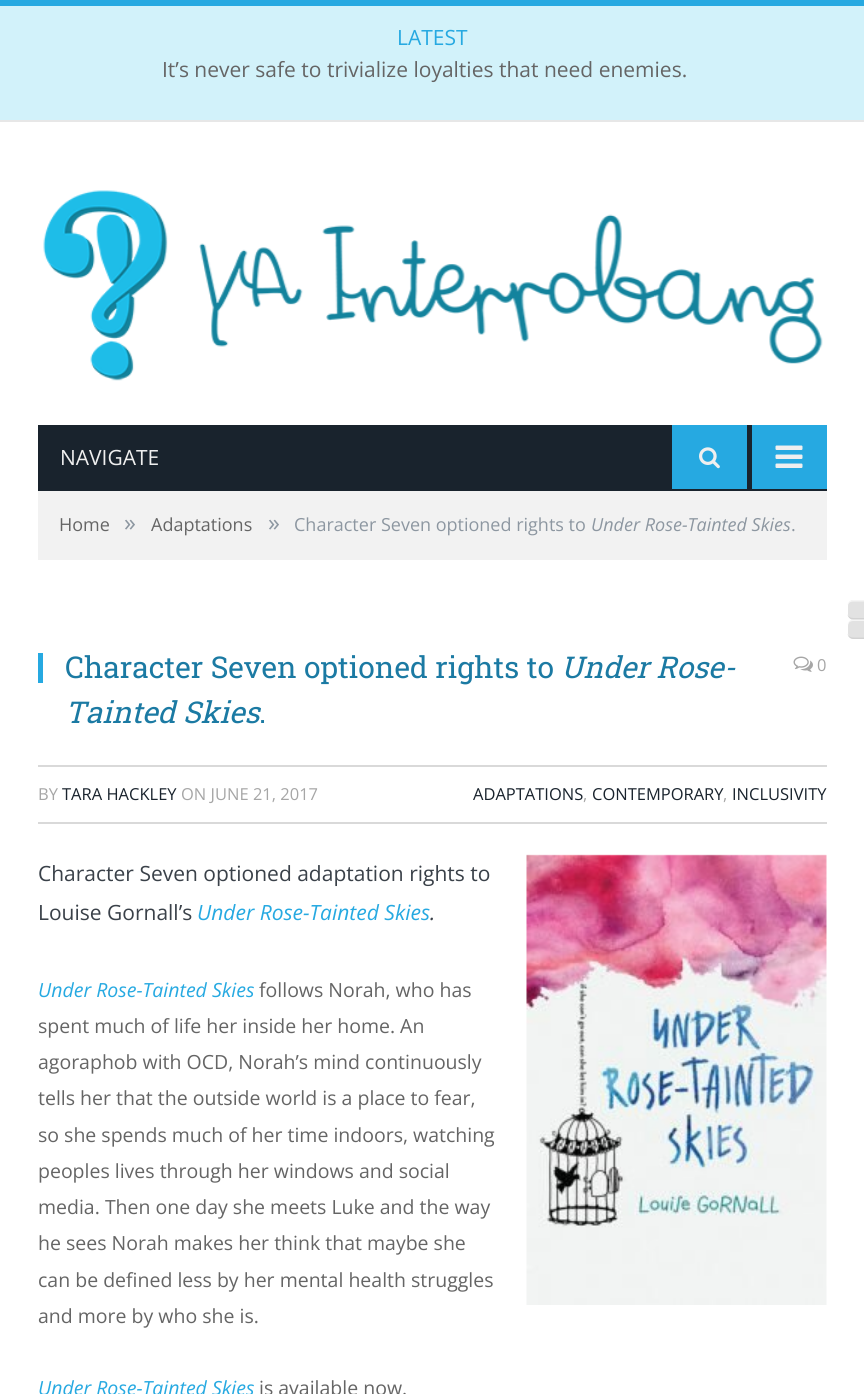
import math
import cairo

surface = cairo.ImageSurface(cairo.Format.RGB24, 864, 1394)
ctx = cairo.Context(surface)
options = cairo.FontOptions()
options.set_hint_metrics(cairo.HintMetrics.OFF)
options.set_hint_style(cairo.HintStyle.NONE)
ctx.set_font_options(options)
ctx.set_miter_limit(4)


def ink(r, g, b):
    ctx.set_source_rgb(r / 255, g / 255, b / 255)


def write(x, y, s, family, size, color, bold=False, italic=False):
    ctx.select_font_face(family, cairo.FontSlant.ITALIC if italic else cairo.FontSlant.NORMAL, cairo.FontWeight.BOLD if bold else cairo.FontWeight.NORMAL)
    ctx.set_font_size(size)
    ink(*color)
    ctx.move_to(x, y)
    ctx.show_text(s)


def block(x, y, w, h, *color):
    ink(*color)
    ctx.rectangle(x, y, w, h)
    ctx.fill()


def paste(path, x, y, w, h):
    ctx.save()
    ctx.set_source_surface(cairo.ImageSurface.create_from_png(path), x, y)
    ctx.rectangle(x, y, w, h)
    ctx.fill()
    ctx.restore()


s1 = dict(family="Open Sans", size=21, color=(38, 169, 225))
s2 = dict(family="Open Sans", size=21, color=(101, 101, 101))
s3 = dict(family="Open Sans", size=21, color=(239, 239, 239))
s4 = dict(family="Open Sans", size=18, color=(101, 101, 101))
s5 = dict(family="Open Sans", size=24, color=(141, 151, 161))
s6 = dict(family="Open Sans", size=18, color=(141, 151, 161))
s7 = dict(family="Open Sans", size=18, color=(141, 151, 161), italic=True)
s8 = dict(family="Roboto Slab", size=30, color=(27, 122, 163))
s9 = dict(family="Roboto Slab", size=30, color=(27, 122, 163), italic=True)
s10 = dict(family="Open Sans", size=16.5, color=(166, 166, 166))
s11 = dict(family="Open Sans", size=16.5, color=(25, 35, 45))
s12 = dict(family="Open Sans", size=21, color=(58, 65, 73))
s13 = dict(family="Open Sans", size=21, color=(38, 169, 225), italic=True)
s14 = dict(family="Open Sans", size=21, color=(58, 65, 73), italic=True)
s15 = dict(family="Open Sans", size=19.5, color=(38, 169, 225), italic=True)
s16 = dict(family="Open Sans", size=19.5, color=(101, 101, 101))

ink(255, 255, 255)
ctx.paint()
block(0, 6, 864, 114, 210, 242, 250)
block(0, 0, 864, 6, 38, 169, 225)
block(0, 120, 864, 2, 231, 231, 231)
write(397, 45, "LATEST", **s1)
write(162, 77, "It’s never safe to trivialize loyalties that need enemies.", **s2)
paste("pic1.png", 43, 190, 780, 191)
block(38, 425, 789, 66, 25, 35, 45)
write(60, 465, "NAVIGATE", **s3)
block(672, 425, 75, 64, 38, 169, 225)
paste("pic2.png", 699, 447, 21, 22)
block(752, 425, 75, 64, 38, 169, 225)
paste("pic3.png", 775, 445, 28, 23)
block(38, 491, 789, 69, 242, 242, 242)
write(59, 531, "Home", **s4)
write(124, 531, "»", **s5)
write(151, 531, "Adaptations", **s4)
write(268, 531, "»", **s5)
write(294, 531, "Character Seven optioned rights to", **s6)
write(591, 531, "Under Rose-Tainted Skies", **s7)
write(791, 531, ".", **s6)
block(38, 653, 5, 30, 38, 169, 225)
write(65, 678, "Character Seven optioned rights to", **s8)
write(561, 678, "Under Rose-", **s9)
write(65, 723, "Tainted Skies", **s9)
write(259, 723, ".", **s8)
paste("pic4.png", 793, 656, 20, 16)
write(817, 671, "0", **s10)
block(38, 765, 789, 2, 217, 217, 217)
block(38, 822, 789, 2, 217, 217, 217)
write(38, 800, "BY", **s10)
write(62, 800, "TARA HACKLEY", **s11)
write(181, 800, "ON JUNE 21, 2017", **s10)
write(473, 800, "ADAPTATIONS", **s11)
write(583, 800, ",", **s10)
write(592, 800, "CONTEMPORARY", **s11)
write(723, 800, ",", **s10)
write(732, 800, "INCLUSIVITY", **s11)
write(38, 881, "Character Seven optioned adaptation rights to", **s12)
paste("pic5.png", 526, 854, 301, 451)
write(38, 920, "Louise Gornall’s", **s12)
write(197, 920, "Under Rose-Tainted Skies", **s13)
write(430, 920, ".", **s14)
write(38, 997, "Under Rose-Tainted Skies", **s15)
write(259, 997, "follows Norah, who has", **s16)
write(38, 1033, "spent much of life her inside her home. An", **s16)
write(38, 1069, "agoraphob with OCD, Norah’s mind continuously", **s16)
write(38, 1105, "tells her that the outside world is a place to fear,", **s16)
write(38, 1142, "so she spends much of her time indoors, watching", **s16)
write(38, 1178, "peoples lives through her windows and social", **s16)
write(38, 1214, "media. Then one day she meets Luke and the way", **s16)
write(38, 1250, "he sees Norah makes her think that maybe she", **s16)
write(38, 1287, "can be defined less by her mental health struggles", **s16)
write(38, 1323, "and more by who she is.", **s16)
write(38, 1395, "Under Rose-Tainted Skies", **s15)
write(259, 1395, "is available now.", **s16)
ink(226, 226, 226)
ctx.new_path()
ctx.move_to(854, 600)
ctx.line_to(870, 600)
ctx.line_to(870, 620)
ctx.line_to(854, 620)
ctx.curve_to(850.5, 620, 848, 617.5, 848, 614)
ctx.line_to(848, 606)
ctx.curve_to(848, 602.5, 850.5, 600, 854, 600)
ctx.close_path()
ctx.fill()
ink(245, 245, 245)
ctx.new_path()
ctx.move_to(853.5, 601.5)
ctx.line_to(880.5, 601.5)
ctx.line_to(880.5, 600)
ctx.line_to(853.5, 600)
ctx.curve_to(850, 600, 847.5, 602.5, 847.5, 606)
ctx.curve_to(847.5, 603.5, 850, 601.5, 853.5, 601.5)
ctx.close_path()
ctx.fill()
ink(210, 210, 210)
ctx.new_path()
ctx.move_to(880.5, 619.5)
ctx.line_to(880.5, 618)
ctx.line_to(853.5, 618)
ctx.curve_to(850, 618, 847.5, 616, 847.5, 613.5)
ctx.curve_to(847.5, 617, 850, 619.5, 853.5, 619.5)
ctx.close_path()
ctx.fill()
ink(226, 226, 226)
ctx.new_path()
ctx.move_to(854, 620)
ctx.line_to(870, 620)
ctx.line_to(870, 639)
ctx.line_to(854, 639)
ctx.curve_to(850.5, 639, 848, 636.5, 848, 633)
ctx.line_to(848, 626)
ctx.curve_to(848, 622.5, 850.5, 620, 854, 620)
ctx.close_path()
ctx.fill()
ink(245, 245, 245)
ctx.new_path()
ctx.move_to(853.5, 621)
ctx.line_to(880.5, 621)
ctx.line_to(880.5, 619.5)
ctx.line_to(853.5, 619.5)
ctx.curve_to(850, 619.5, 847.5, 622, 847.5, 625.5)
ctx.curve_to(847.5, 623, 850, 621, 853.5, 621)
ctx.close_path()
ctx.fill()
ink(210, 210, 210)
ctx.new_path()
ctx.move_to(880.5, 639)
ctx.line_to(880.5, 637.5)
ctx.line_to(853.5, 637.5)
ctx.curve_to(850, 637.5, 847.5, 635.5, 847.5, 633)
ctx.curve_to(847.5, 636.5, 850, 639, 853.5, 639)
ctx.close_path()
ctx.fill()
surface.write_to_png("screenshot.png")
